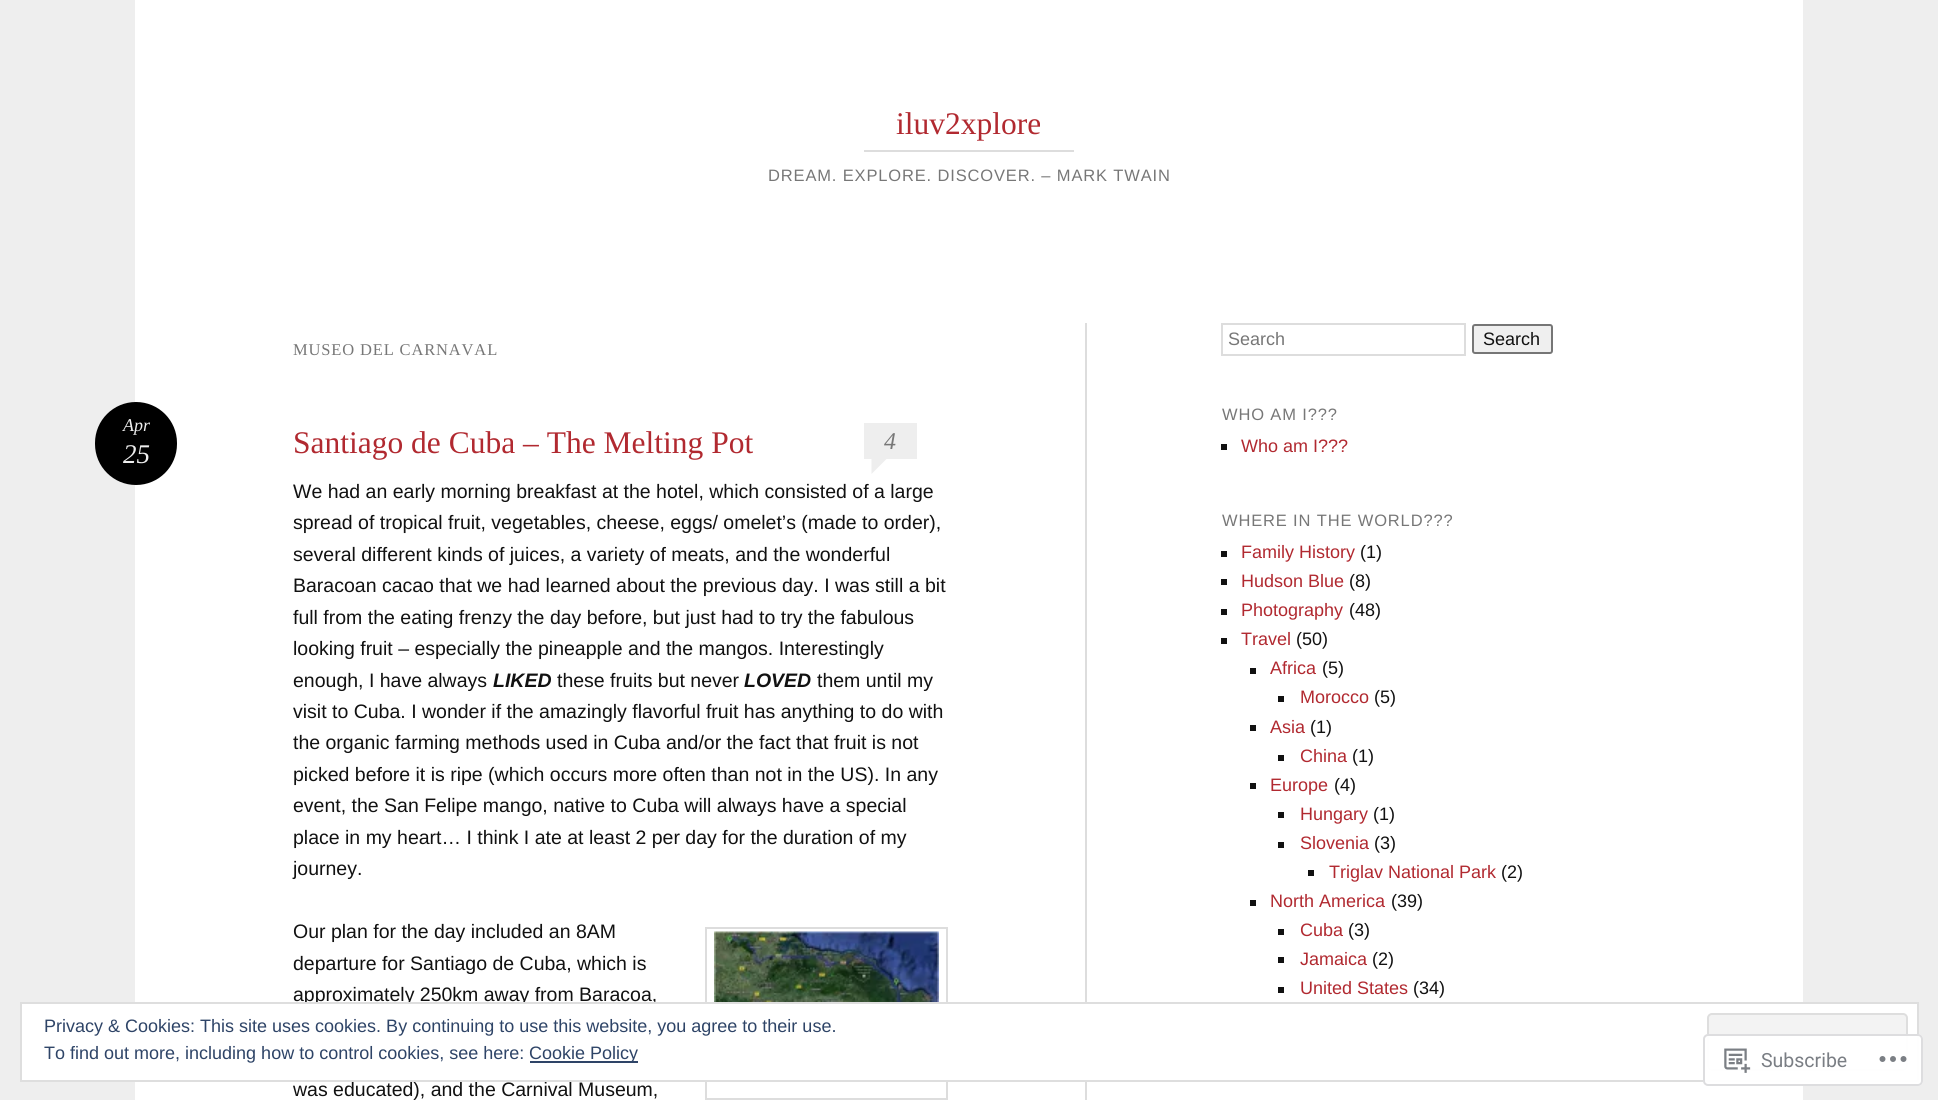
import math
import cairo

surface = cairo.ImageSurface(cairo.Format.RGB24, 1938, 1100)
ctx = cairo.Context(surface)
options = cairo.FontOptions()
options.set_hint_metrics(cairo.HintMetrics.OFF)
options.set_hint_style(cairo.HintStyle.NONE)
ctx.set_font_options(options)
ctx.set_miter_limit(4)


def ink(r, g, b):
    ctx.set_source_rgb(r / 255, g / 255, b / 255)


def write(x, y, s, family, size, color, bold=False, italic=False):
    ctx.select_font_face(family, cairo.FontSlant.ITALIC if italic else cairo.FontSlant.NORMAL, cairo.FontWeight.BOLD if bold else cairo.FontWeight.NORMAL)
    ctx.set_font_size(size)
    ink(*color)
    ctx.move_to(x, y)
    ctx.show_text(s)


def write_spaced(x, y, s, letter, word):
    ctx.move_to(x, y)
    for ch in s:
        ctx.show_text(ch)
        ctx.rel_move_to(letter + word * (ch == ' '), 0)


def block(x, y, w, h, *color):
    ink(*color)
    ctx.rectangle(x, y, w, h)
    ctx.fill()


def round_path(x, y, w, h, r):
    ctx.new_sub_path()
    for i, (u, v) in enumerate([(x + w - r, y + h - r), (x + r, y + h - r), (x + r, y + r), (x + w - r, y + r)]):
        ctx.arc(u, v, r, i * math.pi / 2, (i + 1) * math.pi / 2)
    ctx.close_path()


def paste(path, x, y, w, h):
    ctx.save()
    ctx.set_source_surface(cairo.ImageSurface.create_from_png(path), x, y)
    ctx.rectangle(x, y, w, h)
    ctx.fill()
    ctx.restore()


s1 = dict(family="Liberation Serif", size=31.5, color=(177, 41, 48))
s2 = dict(family="Liberation Serif", size=18, color=(238, 238, 238), italic=True)
s3 = dict(family="Liberation Serif", size=27, color=(238, 238, 238), italic=True)
s4 = dict(family="Liberation Serif", size=24, color=(119, 119, 119), italic=True)
s5 = dict(family="Liberation Sans", size=19.5, color=(17, 17, 17))
s6 = dict(family="Liberation Sans", size=19.5, color=(17, 17, 17), bold=True, italic=True)
s7 = dict(family="Liberation Sans", size=18, color=(119, 119, 119))
s8 = dict(family="Liberation Sans", size=18, color=(17, 17, 17))
s9 = dict(family="Liberation Sans", size=18, color=(177, 41, 48))
s10 = dict(family="Liberation Sans", size=18, color=(46, 68, 103))
s11 = dict(family="Roboto", size=19.5, color=(122, 126, 132))

ink(238, 238, 238)
ctx.paint()
block(135, 0, 1668, 1100, 255, 255, 255)
block(864, 150, 210, 2, 221, 221, 221)
write(896, 134, "iluv2xplore", **s1)
ctx.select_font_face("Liberation Sans")
ctx.set_font_size(16.5)
ink(119, 119, 119)
write_spaced(768, 181, "DREAM. EXPLORE. DISCOVER. – MARK TWAIN", 0.85, 0)
ctx.select_font_face("Liberation Serif")
write_spaced(293, 355, "MUSEO DEL CARNAVAL", 0.85, 0)
ink(0, 0, 0)
round_path(95, 402, 82, 83, 41)
ctx.fill()
write(123, 431, "Apr", **s2)
write(123, 463, "25", **s3)
write(293, 453, "Santiago de Cuba – The Melting Pot", **s1)
block(864, 423, 53, 36, 238, 238, 238)
write(884, 449, "4", **s4)
ink(238, 238, 238)
ctx.new_path()
ctx.move_to(871.5, 474)
ctx.line_to(871.5, 459)
ctx.line_to(886.5, 459)
ctx.close_path()
ctx.fill()
write(293, 498, "We had an early morning breakfast at the hotel, which consisted of a large", **s5)
write(293, 529, "spread of tropical fruit, vegetables, cheese, eggs/ omelet’s (made to order),", **s5)
write(293, 561, "several different kinds of juices, a variety of meats, and the wonderful", **s5)
write(293, 592, "Baracoan cacao that we had learned about the previous day. I was still a bit", **s5)
write(293, 624, "full from the eating frenzy the day before, but just had to try the fabulous", **s5)
write(293, 655, "looking fruit – especially the pineapple and the mangos. Interestingly", **s5)
write(293, 687, "enough, I have always", **s5)
write(493, 687, "LIKED", **s6)
write(557, 687, "these fruits but never", **s5)
write(744, 687, "LOVED", **s6)
write(817, 687, "them until my", **s5)
write(293, 718, "visit to Cuba. I wonder if the amazingly flavorful fruit has anything to do with", **s5)
write(293, 749, "the organic farming methods used in Cuba and/or the fact that fruit is not", **s5)
write(293, 781, "picked before it is ripe (which occurs more often than not in the US). In any", **s5)
write(293, 812, "event, the San Felipe mango, native to Cuba will always have a special", **s5)
write(293, 844, "place in my heart… I think I ate at least 2 per day for the duration of my", **s5)
write(293, 875, "journey.", **s5)
write(293, 938, "Our plan for the day included an 8AM", **s5)
write(293, 970, "departure for Santiago de Cuba, which is", **s5)
write(293, 1001, "approximately 250km away from Baracoa,", **s5)
write(293, 1096, "was educated), and the Carnival Museum,", **s5)
ctx.rectangle(706, 928, 241, 171)
ink(221, 221, 221)
ctx.stroke()
paste("pic1.png", 714, 931, 225, 71)
block(1085, 323, 2, 777, 221, 221, 221)
ctx.rectangle(1222, 324, 243, 31)
ctx.stroke()
write(1228, 345, "Search", **s7)
ink(239, 239, 239)
round_path(1473, 325, 79, 28, 2)
ctx.fill_preserve()
ink(118, 118, 118)
ctx.stroke()
write(1483, 345, "Search", **s8)
ctx.set_font_size(16.5)
ink(119, 119, 119)
write_spaced(1222, 420, "WHO AM I???", 0.85, 0)
block(1221, 444, 6, 6, 17, 17, 17)
write(1241, 452, "Who am I???", **s9)
ctx.set_font_size(16.5)
ink(119, 119, 119)
write_spaced(1222, 526, "WHERE IN THE WORLD???", 0.85, 0)
block(1221, 551, 6, 6, 17, 17, 17)
write(1241, 558, "Family History", **s9)
write(1360, 558, "(1)", **s8)
block(1221, 579, 6, 6, 17, 17, 17)
write(1241, 587, "Hudson Blue", **s9)
write(1349, 587, "(8)", **s8)
block(1221, 609, 6, 6, 17, 17, 17)
write(1241, 616, "Photography", **s9)
write(1349, 616, "(48)", **s8)
block(1221, 638, 6, 6, 17, 17, 17)
write(1241, 645, "Travel", **s9)
write(1296, 645, "(50)", **s8)
block(1250, 668, 6, 6, 17, 17, 17)
write(1270, 674, "Africa", **s9)
write(1322, 674, "(5)", **s8)
block(1278, 696, 6, 6, 17, 17, 17)
write(1300, 703, "Morocco", **s9)
write(1374, 703, "(5)", **s8)
block(1250, 725, 6, 6, 17, 17, 17)
write(1270, 733, "Asia", **s9)
write(1310, 733, "(1)", **s8)
block(1278, 755, 6, 6, 17, 17, 17)
write(1300, 762, "China", **s9)
write(1352, 762, "(1)", **s8)
block(1250, 783, 6, 6, 17, 17, 17)
write(1270, 791, "Europe", **s9)
write(1334, 791, "(4)", **s8)
block(1278, 812, 6, 6, 17, 17, 17)
write(1300, 820, "Hungary", **s9)
write(1373, 820, "(1)", **s8)
block(1278, 842, 6, 6, 17, 17, 17)
write(1300, 849, "Slovenia", **s9)
write(1374, 849, "(3)", **s8)
block(1308, 870, 6, 6, 17, 17, 17)
write(1329, 878, "Triglav National Park", **s9)
write(1501, 878, "(2)", **s8)
block(1250, 900, 6, 6, 17, 17, 17)
write(1270, 907, "North America", **s9)
write(1391, 907, "(39)", **s8)
block(1278, 929, 6, 6, 17, 17, 17)
write(1300, 936, "Cuba", **s9)
write(1348, 936, "(3)", **s8)
block(1278, 957, 6, 6, 17, 17, 17)
write(1300, 965, "Jamaica", **s9)
write(1372, 965, "(2)", **s8)
block(1278, 987, 6, 6, 17, 17, 17)
write(1300, 994, "United States", **s9)
write(1413, 994, "(34)", **s8)
ink(255, 255, 255)
ctx.rectangle(21, 1003, 1897, 78)
ctx.fill_preserve()
ink(222, 222, 222)
ctx.stroke()
write(44, 1032, "Privacy & Cookies: This site uses cookies. By continuing to use this website, you agree to their use.", **s10)
ink(243, 243, 243)
round_path(1708, 1014, 199, 56, 4)
ctx.fill_preserve()
ink(222, 222, 222)
ctx.stroke()
write(44, 1059, "To find out more, including how to control cookies, see here:", **s10)
block(530, 1061, 108, 2, 46, 68, 103)
write(529, 1059, "Cookie Policy", **s10)
ctx.set_source_rgba(1, 1, 1, 0.98)
round_path(1703, 1034, 220, 52, 5)
ctx.fill()
round_path(1704, 1035, 218, 50, 4)
ctx.set_source_rgba(0.863, 0.863, 0.871, 0.98)
ctx.stroke()
paste("pic2.png", 1724, 1048, 27, 25)
write(1761, 1067, "Subscribe", **s11)
paste("pic3.png", 1879, 1056, 28, 6)
surface.write_to_png("screenshot.png")
